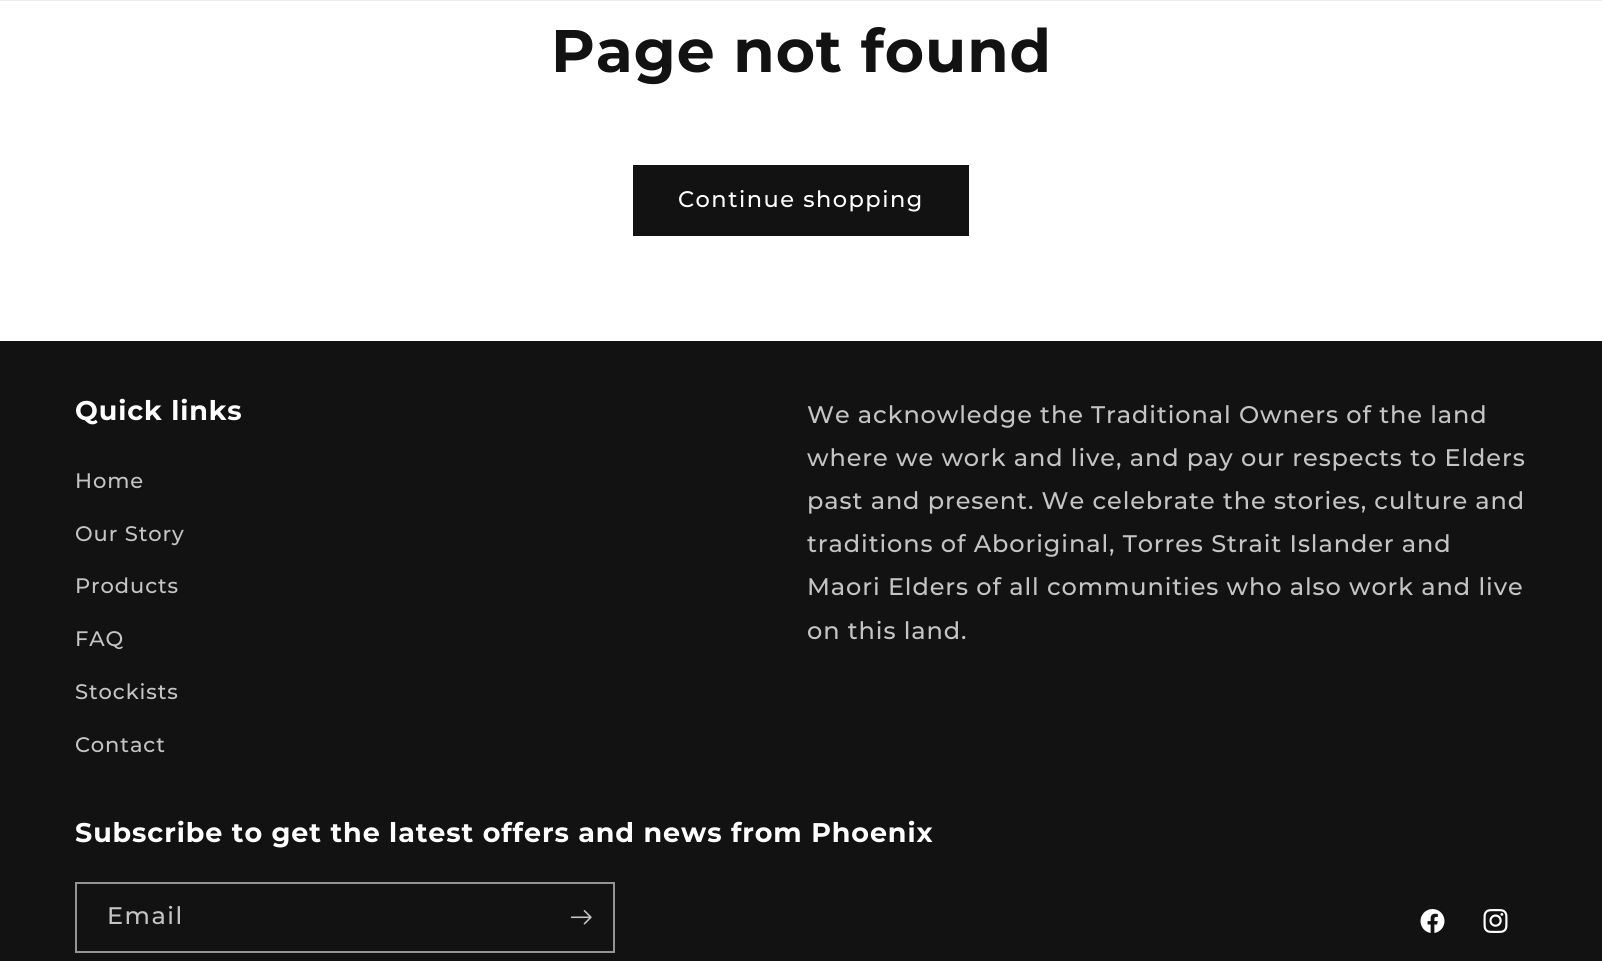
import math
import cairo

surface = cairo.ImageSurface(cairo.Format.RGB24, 1602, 961)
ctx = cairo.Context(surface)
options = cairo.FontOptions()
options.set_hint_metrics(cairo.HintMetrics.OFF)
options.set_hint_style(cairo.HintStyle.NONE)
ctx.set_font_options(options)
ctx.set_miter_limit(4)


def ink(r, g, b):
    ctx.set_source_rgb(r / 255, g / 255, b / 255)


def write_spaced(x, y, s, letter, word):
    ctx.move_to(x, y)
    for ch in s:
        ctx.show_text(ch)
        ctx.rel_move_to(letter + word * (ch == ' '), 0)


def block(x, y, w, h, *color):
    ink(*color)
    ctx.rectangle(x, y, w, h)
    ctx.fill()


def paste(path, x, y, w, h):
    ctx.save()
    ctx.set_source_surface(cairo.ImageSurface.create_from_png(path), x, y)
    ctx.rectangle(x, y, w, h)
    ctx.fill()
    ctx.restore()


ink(255, 255, 255)
ctx.paint()
block(0, 0, 1602, 1, 236, 236, 236)
ctx.select_font_face("Montserrat", cairo.FontSlant.NORMAL, cairo.FontWeight.BOLD)
ctx.set_font_size(60)
ink(18, 18, 18)
write_spaced(551, 72, "Page not found", 0.9, 0)
block(633, 165, 336, 71, 18, 18, 18)
ctx.select_font_face("Montserrat Medium")
ctx.set_font_size(22.5)
ink(255, 255, 255)
write_spaced(678, 207, "Continue shopping", 1.5, 0)
block(0, 341, 1602, 620, 18, 18, 18)
ctx.select_font_face("Montserrat", cairo.FontSlant.NORMAL, cairo.FontWeight.BOLD)
ctx.set_font_size(27)
ink(255, 255, 255)
write_spaced(75, 420, "Quick links", 0.9, 0)
ctx.select_font_face("Montserrat Medium")
ctx.set_font_size(21)
ink(196, 196, 196)
write_spaced(75, 488, "Home", 0.9, 0)
write_spaced(75, 541, "Our Story", 0.9, 0)
write_spaced(75, 593, "Products", 0.9, 0)
write_spaced(75, 646, "FAQ", 0.9, 0)
write_spaced(75, 699, "Stockists", 0.9, 0)
write_spaced(75, 752, "Contact", 0.9, 0)
ctx.set_font_size(24)
write_spaced(807, 423, "We acknowledge the Traditional Owners of the land", 0.9, 0)
write_spaced(807, 466, "where we work and live, and pay our respects to Elders", 0.9, 0)
write_spaced(807, 509, "past and present. We celebrate the stories, culture and", 0.9, 0)
write_spaced(807, 552, "traditions of Aboriginal, Torres Strait Islander and", 0.9, 0)
write_spaced(807, 595, "Maori Elders of all communities who also work and live", 0.9, 0)
write_spaced(807, 639, "on this land.", 0.9, 0)
ctx.select_font_face("Montserrat", cairo.FontSlant.NORMAL, cairo.FontWeight.BOLD)
ctx.set_font_size(27)
ink(255, 255, 255)
write_spaced(75, 842, "Subscribe to get the latest offers and news from Phoenix", 0.9, 0)
ctx.rectangle(76, 883, 538, 69)
ink(148, 148, 148)
ctx.stroke()
ctx.select_font_face("Montserrat Medium")
ctx.set_font_size(24)
ink(196, 196, 196)
write_spaced(107, 924, "Email", 1.5, 0)
paste("pic1.png", 570, 910, 22, 15)
paste("pic2.png", 1420, 909, 25, 24)
paste("pic3.png", 1483, 909, 25, 24)
surface.write_to_png("screenshot.png")
